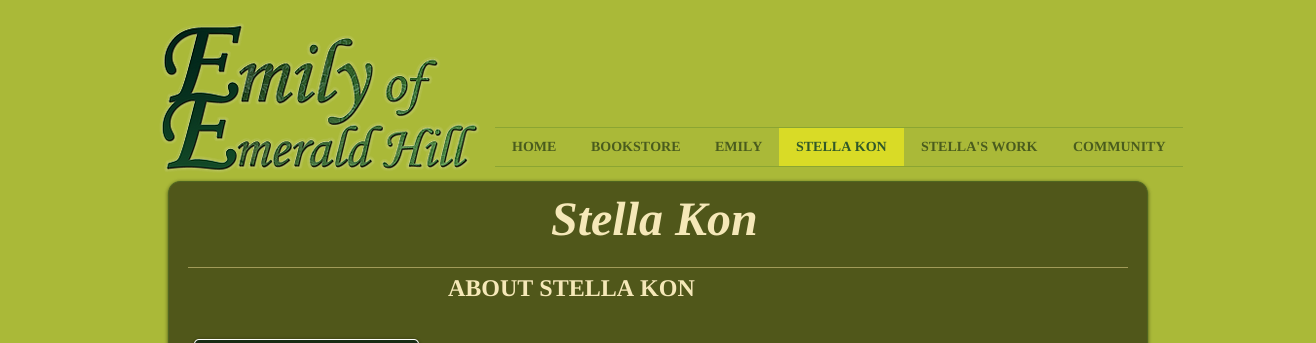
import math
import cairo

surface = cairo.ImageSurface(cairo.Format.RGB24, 1316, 343)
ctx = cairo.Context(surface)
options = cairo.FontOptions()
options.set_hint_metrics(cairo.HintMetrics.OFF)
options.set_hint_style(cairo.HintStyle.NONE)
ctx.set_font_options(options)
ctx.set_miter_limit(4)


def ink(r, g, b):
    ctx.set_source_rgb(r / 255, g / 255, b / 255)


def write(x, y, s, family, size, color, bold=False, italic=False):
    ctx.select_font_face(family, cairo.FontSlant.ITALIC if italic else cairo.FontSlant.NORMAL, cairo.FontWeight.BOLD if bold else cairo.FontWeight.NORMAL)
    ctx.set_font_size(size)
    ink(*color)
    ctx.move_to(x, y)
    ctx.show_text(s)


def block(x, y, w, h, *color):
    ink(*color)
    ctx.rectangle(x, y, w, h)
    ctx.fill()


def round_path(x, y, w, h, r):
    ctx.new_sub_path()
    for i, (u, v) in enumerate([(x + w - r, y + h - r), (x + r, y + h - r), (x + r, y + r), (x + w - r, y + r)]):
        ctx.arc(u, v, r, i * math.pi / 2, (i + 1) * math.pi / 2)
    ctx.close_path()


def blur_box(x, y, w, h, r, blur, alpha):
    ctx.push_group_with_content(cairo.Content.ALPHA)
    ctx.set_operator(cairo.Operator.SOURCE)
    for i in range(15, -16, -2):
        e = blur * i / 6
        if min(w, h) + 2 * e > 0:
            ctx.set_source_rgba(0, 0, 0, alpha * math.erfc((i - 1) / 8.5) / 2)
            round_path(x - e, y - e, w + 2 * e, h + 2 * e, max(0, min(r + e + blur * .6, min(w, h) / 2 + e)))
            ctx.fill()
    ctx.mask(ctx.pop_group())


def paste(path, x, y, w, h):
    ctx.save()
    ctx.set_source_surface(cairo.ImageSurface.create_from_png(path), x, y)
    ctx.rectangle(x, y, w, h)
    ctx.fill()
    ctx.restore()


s1 = dict(family="Liberation Serif", size=14, color=(74, 92, 29), bold=True)
s2 = dict(family="Liberation Serif", size=14, color=(49, 89, 41), bold=True)
s3 = dict(family="Liberation Serif", size=48, color=(245, 232, 184), bold=True, italic=True)
s4 = dict(family="Liberation Serif", size=24, color=(245, 232, 184), bold=True)

ink(170, 185, 56)
ctx.paint()
paste("pic1.png", 159, 23, 321, 150)
block(495, 127, 688, 1, 139, 165, 50)
block(495, 166, 688, 1, 139, 165, 50)
write(512, 151, "HOME", **s1)
write(591, 151, "BOOKSTORE", **s1)
write(715, 151, "EMILY", **s1)
block(779, 128, 125, 38, 217, 219, 38)
write(796, 151, "STELLA KON", **s2)
write(921, 151, "STELLA'S WORK", **s1)
write(1073, 151, "COMMUNITY", **s1)
ctx.save()
ctx.set_fill_rule(cairo.FillRule.EVEN_ODD)
ctx.new_path()
ctx.move_to(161, 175)
ctx.line_to(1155, 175)
ctx.line_to(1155, 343)
ctx.line_to(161, 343)
ctx.close_path()
ctx.move_to(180, 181)
ctx.line_to(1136, 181)
ctx.curve_to(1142.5, 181, 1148, 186.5, 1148, 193)
ctx.line_to(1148, 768)
ctx.curve_to(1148, 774.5, 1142.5, 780, 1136, 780)
ctx.line_to(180, 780)
ctx.curve_to(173.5, 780, 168, 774.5, 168, 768)
ctx.line_to(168, 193)
ctx.curve_to(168, 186.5, 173.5, 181, 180, 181)
ctx.close_path()
ctx.clip()
ink(0, 0, 0)
blur_box(168, 182, 980, 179, 12, 2, 0.6)
ctx.restore()
ctx.set_source_rgba(0, 0, 0, 0.53)
round_path(168.5, 181.5, 979, 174, 11.5)
ctx.fill_preserve()
ink(80, 102, 31)
ctx.set_line_width(1)
ctx.stroke()
write(551, 235, "Stella Kon", **s3)
block(188, 267, 940, 1, 161, 155, 89)
write(448, 296, "ABOUT STELLA KON", **s4)
ink(0, 0, 0)
blur_box(194, 340, 225, 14, 5, 2, 0.6)
ink(24, 44, 20)
round_path(194.5, 339.5, 224, 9, 4.5)
ctx.fill_preserve()
ink(255, 255, 255)
ctx.stroke()
surface.write_to_png("screenshot.png")
